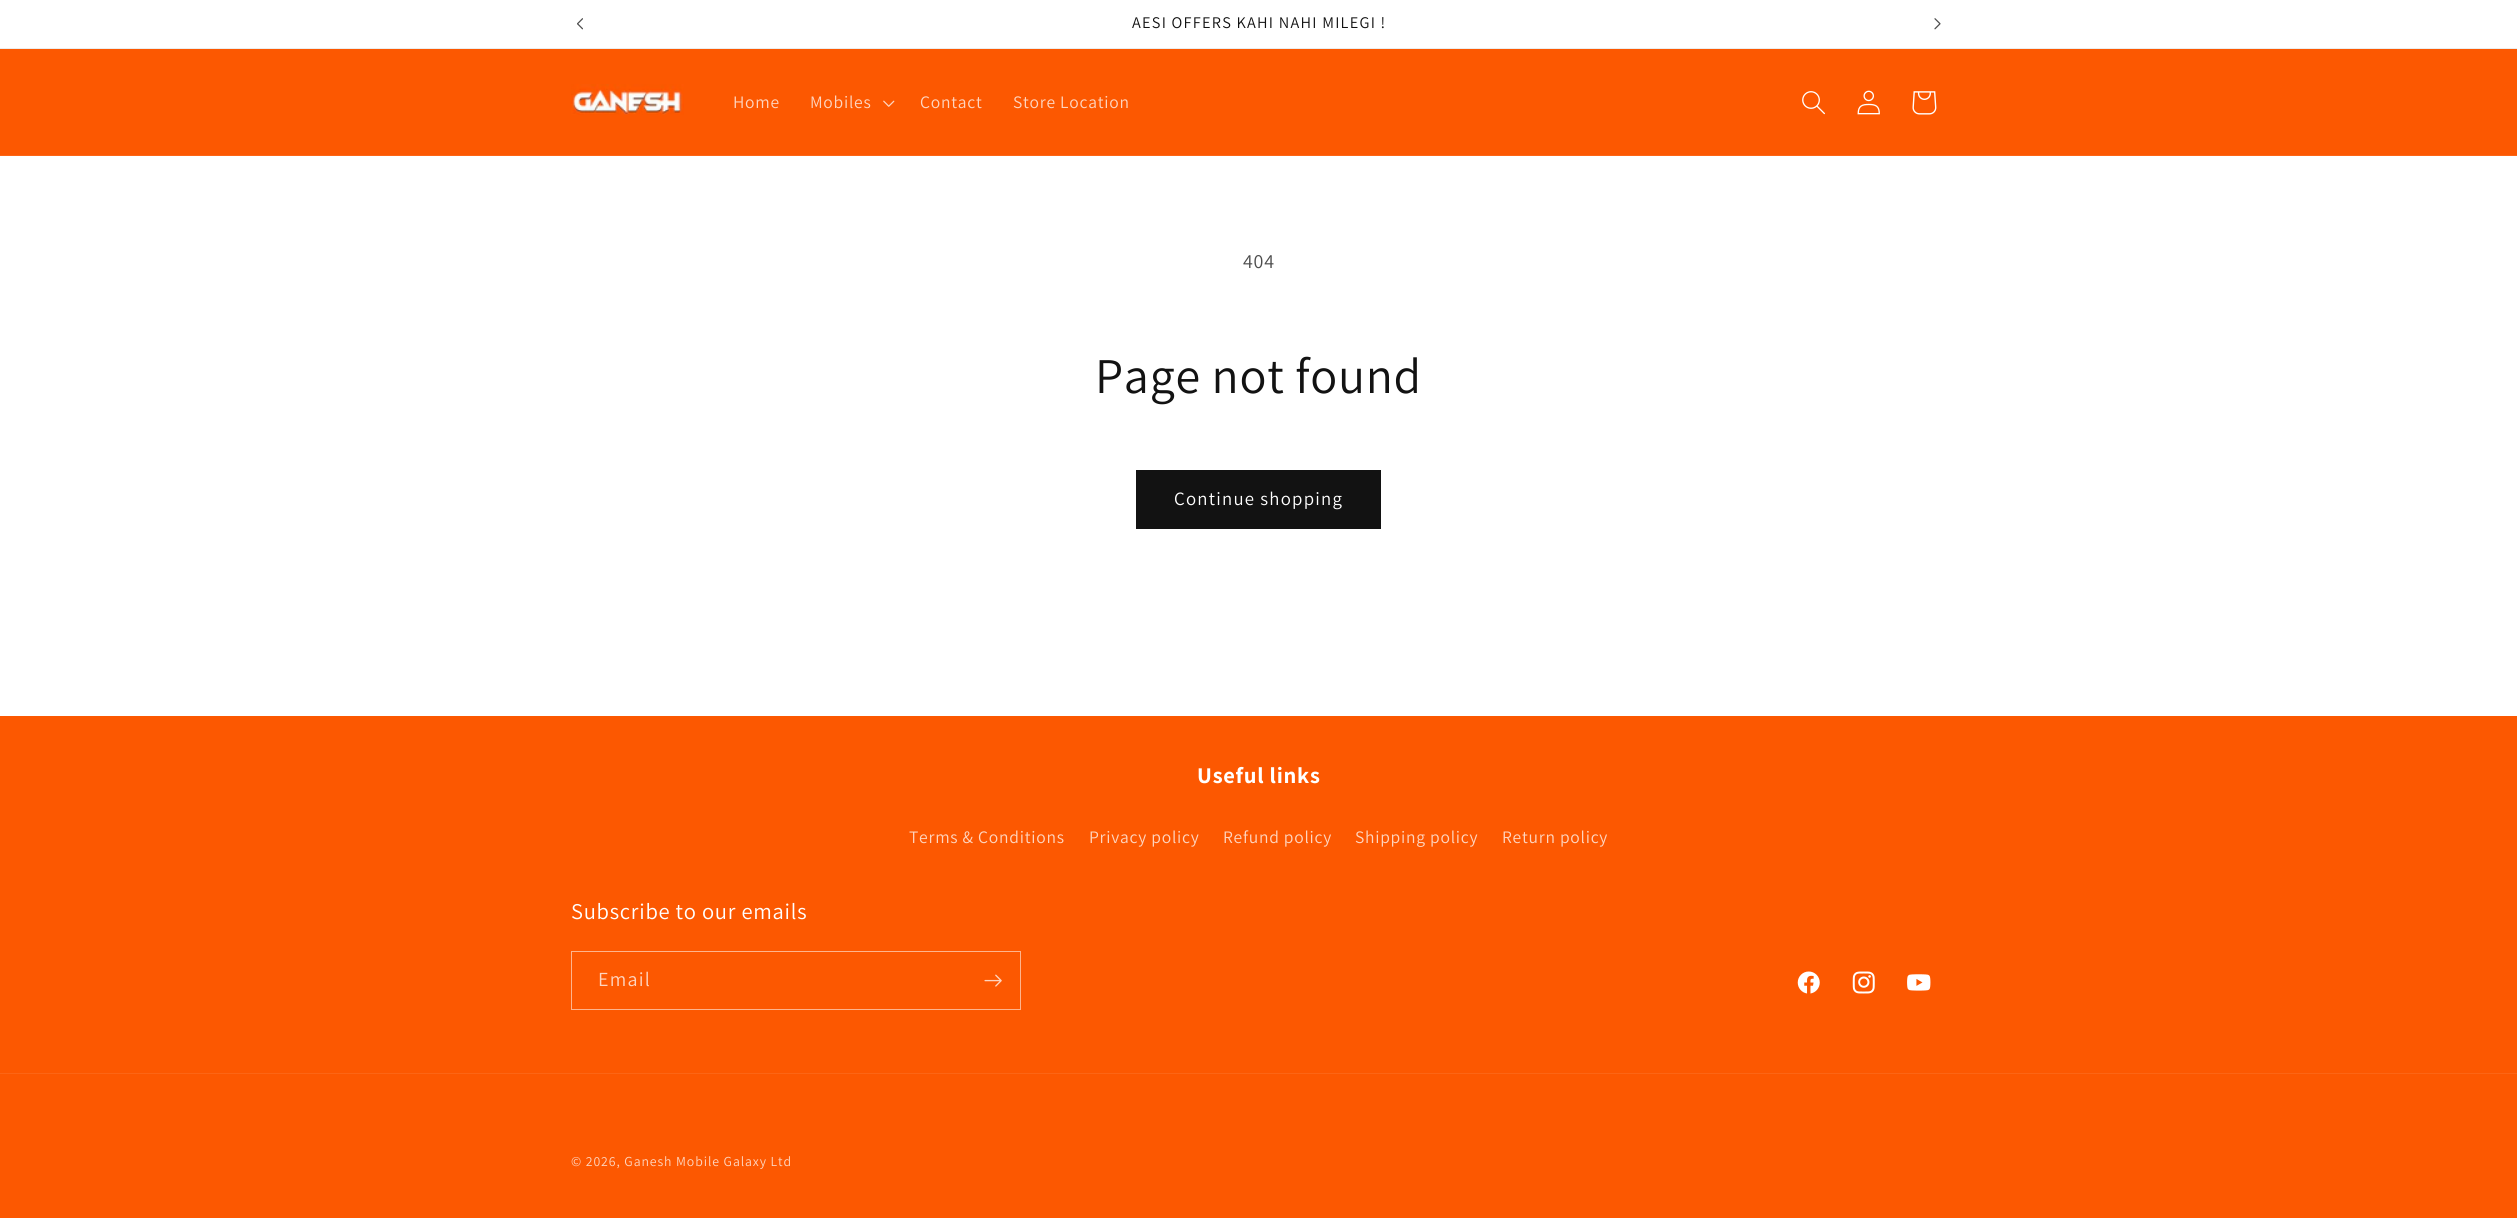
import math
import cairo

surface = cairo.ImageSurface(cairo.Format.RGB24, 2517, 1218)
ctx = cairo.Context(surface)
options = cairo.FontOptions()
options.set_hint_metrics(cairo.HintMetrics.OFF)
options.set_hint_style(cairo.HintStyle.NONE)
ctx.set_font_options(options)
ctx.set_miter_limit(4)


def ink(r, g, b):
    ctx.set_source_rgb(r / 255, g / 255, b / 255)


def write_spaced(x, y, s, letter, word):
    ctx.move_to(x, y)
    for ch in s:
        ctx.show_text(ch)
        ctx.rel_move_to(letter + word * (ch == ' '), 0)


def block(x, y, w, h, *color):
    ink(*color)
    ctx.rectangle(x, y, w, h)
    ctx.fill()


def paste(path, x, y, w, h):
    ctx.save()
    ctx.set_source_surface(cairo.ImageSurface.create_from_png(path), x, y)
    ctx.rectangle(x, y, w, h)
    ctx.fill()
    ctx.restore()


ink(255, 255, 255)
ctx.paint()
block(0, 48, 2517, 1, 236, 236, 236)
paste("pic1.png", 577, 18, 6, 12)
ctx.select_font_face("Assistant")
ctx.set_font_size(16.25)
ink(18, 18, 18)
write_spaced(1132, 28, "AESI OFFERS KAHI NAHI MILEGI !", 1.25, 0)
paste("pic2.png", 1934, 18, 7, 12)
block(0, 49, 2517, 106, 252, 88, 1)
block(0, 155, 2517, 1, 252, 101, 21)
paste("pic3.png", 571, 84, 113, 31)
ctx.set_font_size(17.5)
ink(254, 213, 192)
write_spaced(733, 108, "Home", 0.75, 0)
write_spaced(810, 108, "Mobiles", 0.75, 0)
paste("pic4.png", 883, 100, 12, 7)
write_spaced(920, 108, "Contact", 0.75, 0)
write_spaced(1013, 108, "Store Location", 0.75, 0)
paste("pic5.png", 1802, 91, 23, 24)
paste("pic6.png", 1857, 90, 23, 25)
paste("pic7.png", 1912, 91, 25, 24)
ctx.set_font_size(20)
ink(77, 77, 77)
write_spaced(1243, 268, "404", 0.75, 0)
ctx.set_font_size(50)
ink(18, 18, 18)
write_spaced(1095, 393, "Page not found", 0.75, 0)
block(1136, 470, 245, 59, 18, 18, 18)
ctx.set_font_size(18.75)
ink(255, 255, 255)
write_spaced(1174, 505, "Continue shopping", 1.25, 0)
block(0, 716, 2517, 502, 252, 88, 1)
ctx.select_font_face("Assistant", cairo.FontSlant.NORMAL, cairo.FontWeight.BOLD)
ctx.set_font_size(22.5)
ink(255, 255, 255)
write_spaced(1197, 783, "Useful links", 0.75, 0)
ctx.select_font_face("Assistant")
ctx.set_font_size(17.5)
ink(254, 213, 192)
write_spaced(909, 843, "Terms & Conditions", 0.75, 0)
write_spaced(1089, 843, "Privacy policy", 0.75, 0)
write_spaced(1223, 843, "Refund policy", 0.75, 0)
write_spaced(1355, 843, "Shipping policy", 0.75, 0)
write_spaced(1502, 843, "Return policy", 0.75, 0)
ctx.set_font_size(22.5)
ink(255, 255, 255)
write_spaced(571, 919, "Subscribe to our emails", 0.75, 0)
ctx.rectangle(571.5, 951.5, 449, 58)
ink(254, 180, 141)
ctx.set_line_width(1)
ctx.stroke()
ctx.set_font_size(20)
ink(254, 213, 192)
write_spaced(598, 986, "Email", 1.25, 0)
paste("pic8.png", 984, 974, 18, 13)
paste("pic9.png", 1797, 971, 23, 23)
paste("pic10.png", 1852, 971, 23, 23)
paste("pic11.png", 1907, 974, 24, 17)
block(0, 1073, 2517, 1, 252, 101, 21)
ctx.set_font_size(13.75)
ink(254, 213, 192)
write_spaced(571, 1166, "© 2026, Ganesh Mobile Galaxy Ltd", 0.9, 0)
surface.write_to_png("screenshot.png")
